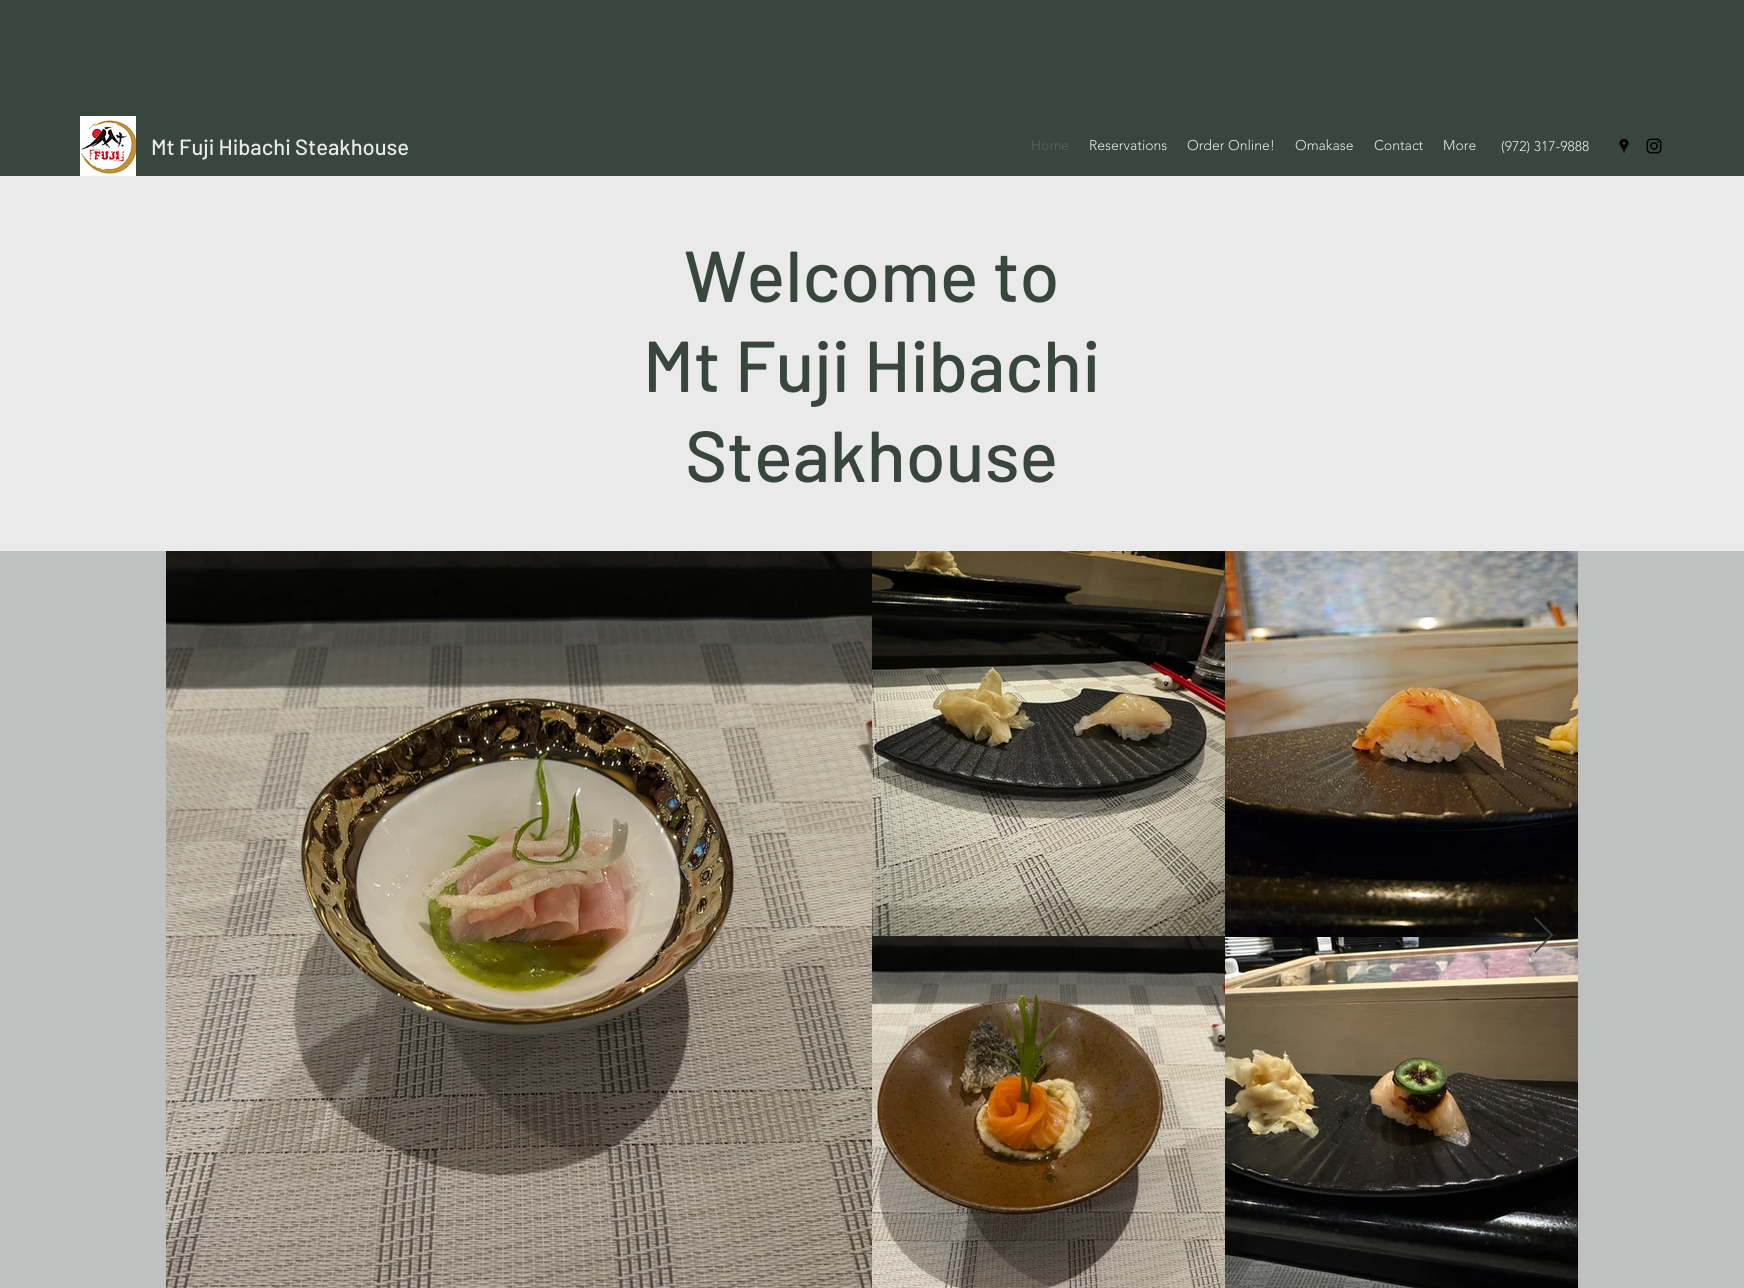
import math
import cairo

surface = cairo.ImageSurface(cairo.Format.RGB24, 1744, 1288)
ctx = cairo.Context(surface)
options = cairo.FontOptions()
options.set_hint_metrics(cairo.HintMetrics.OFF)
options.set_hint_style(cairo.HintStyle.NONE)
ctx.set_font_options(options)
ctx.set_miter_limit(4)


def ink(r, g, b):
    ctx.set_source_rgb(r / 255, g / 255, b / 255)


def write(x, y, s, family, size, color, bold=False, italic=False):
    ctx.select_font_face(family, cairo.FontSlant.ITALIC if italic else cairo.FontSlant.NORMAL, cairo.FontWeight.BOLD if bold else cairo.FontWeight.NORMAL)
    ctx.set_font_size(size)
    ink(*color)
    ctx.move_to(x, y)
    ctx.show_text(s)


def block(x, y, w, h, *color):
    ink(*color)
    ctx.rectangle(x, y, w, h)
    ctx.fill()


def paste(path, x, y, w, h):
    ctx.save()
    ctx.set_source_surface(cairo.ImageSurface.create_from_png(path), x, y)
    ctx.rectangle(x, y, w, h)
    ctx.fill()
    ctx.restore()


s1 = dict(family="Barlow Medium", size=22, color=(234, 234, 234))
s2 = dict(family="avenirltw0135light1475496 Light", size=14, color=(81, 104, 88))
s3 = dict(family="avenirltw0135light1475496 Light", size=14, color=(234, 234, 234))
s4 = dict(family="Barlow Medium", size=72, color=(57, 70, 62))

ink(57, 70, 62)
ctx.paint()
paste("pic1.png", 80, 116, 56, 60)
write(151, 155, "Mt Fuji Hibachi Steakhouse", **s1)
write(1031, 150, "Home", **s2)
write(1089, 150, "Reservations", **s3)
write(1187, 150, "Order Online!", **s3)
write(1295, 150, "Omakase", **s3)
write(1374, 150, "Contact", **s3)
write(1443, 150, "More", **s3)
write(1501, 151, "(972) 317-9888", **s3)
paste("pic2.png", 1619, 138, 10, 15)
paste("pic3.png", 1646, 138, 16, 16)
block(0, 176, 1744, 375, 234, 234, 234)
write(684, 302, "Welcome to", **s4)
write(643, 392, "Mt Fuji Hibachi", **s4)
write(685, 482, "Steakhouse", **s4)
block(0, 551, 1744, 737, 190, 193, 191)
paste("pic4.png", 166, 551, 706, 737)
paste("pic5.png", 872, 551, 353, 385)
paste("pic6.png", 872, 936, 353, 352)
paste("pic7.png", 1225, 551, 353, 386)
paste("pic8.png", 1225, 937, 353, 351)
ctx.set_source_rgba(0.224, 0.275, 0.243, 0.9)
ctx.new_path()
ctx.move_to(1534, 918.5)
ctx.line_to(1535.5, 917)
ctx.line_to(1553.5, 935)
ctx.line_to(1535.5, 953)
ctx.line_to(1534, 951.5)
ctx.line_to(1550.5, 935)
ctx.close_path()
ctx.fill()
surface.write_to_png("screenshot.png")
